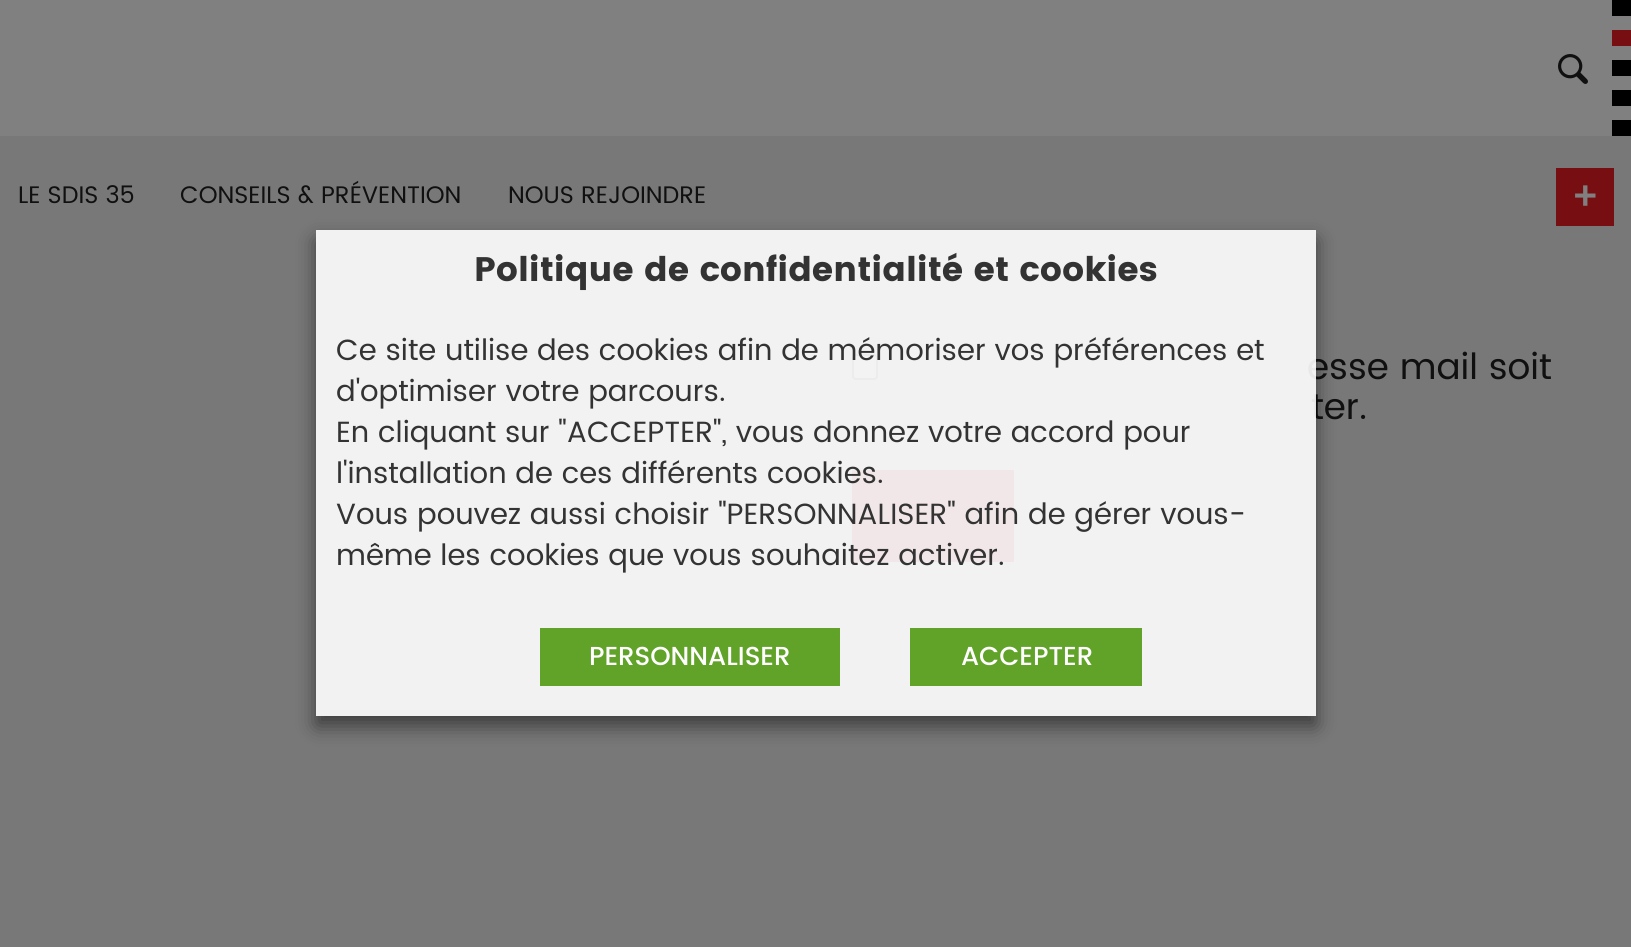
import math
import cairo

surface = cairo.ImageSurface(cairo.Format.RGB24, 1631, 947)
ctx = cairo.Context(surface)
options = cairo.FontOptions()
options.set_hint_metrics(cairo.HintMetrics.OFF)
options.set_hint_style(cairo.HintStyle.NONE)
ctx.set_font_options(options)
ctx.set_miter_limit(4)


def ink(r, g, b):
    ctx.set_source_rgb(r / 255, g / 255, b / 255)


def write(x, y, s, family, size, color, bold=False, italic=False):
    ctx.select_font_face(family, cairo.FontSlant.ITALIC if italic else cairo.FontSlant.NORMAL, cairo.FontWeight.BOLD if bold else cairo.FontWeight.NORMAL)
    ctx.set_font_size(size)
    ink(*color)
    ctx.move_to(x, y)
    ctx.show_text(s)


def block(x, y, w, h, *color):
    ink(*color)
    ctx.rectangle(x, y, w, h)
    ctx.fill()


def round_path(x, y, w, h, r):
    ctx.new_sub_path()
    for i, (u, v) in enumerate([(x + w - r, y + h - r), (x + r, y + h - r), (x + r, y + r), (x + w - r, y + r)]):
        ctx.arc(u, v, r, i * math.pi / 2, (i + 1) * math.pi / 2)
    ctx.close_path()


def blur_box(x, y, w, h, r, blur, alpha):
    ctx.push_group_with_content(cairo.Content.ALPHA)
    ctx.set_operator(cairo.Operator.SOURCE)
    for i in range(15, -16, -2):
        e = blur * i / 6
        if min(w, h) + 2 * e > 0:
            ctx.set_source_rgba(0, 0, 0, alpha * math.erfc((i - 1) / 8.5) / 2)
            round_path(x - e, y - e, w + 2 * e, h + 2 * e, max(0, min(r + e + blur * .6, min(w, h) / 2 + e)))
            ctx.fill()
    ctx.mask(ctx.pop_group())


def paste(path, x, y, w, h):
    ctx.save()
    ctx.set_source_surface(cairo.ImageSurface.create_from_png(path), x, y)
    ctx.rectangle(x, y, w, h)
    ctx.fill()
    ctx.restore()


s1 = dict(family="Poppins", size=24, color=(16, 16, 16))
s2 = dict(family="Poppins Medium", size=40, color=(128, 128, 128))
s3 = dict(family="Poppins", size=36, color=(16, 16, 16))
s4 = dict(family="Poppins", size=34, color=(51, 51, 51), bold=True)
s5 = dict(family="Poppins", size=29.3, color=(51, 51, 51))
s6 = dict(family="Poppins Medium", size=26, color=(255, 255, 255))

ink(120, 120, 120)
ctx.paint()
block(0, 0, 1631, 136, 128, 128, 128)
paste("pic1.png", 1558, 54, 30, 30)
block(1612, 0, 19, 16, 0, 0, 0)
block(1612, 30, 19, 16, 119, 15, 18)
block(1612, 60, 19, 16, 0, 0, 0)
block(1612, 90, 19, 16, 0, 0, 0)
block(1612, 120, 19, 16, 0, 0, 0)
write(18, 203, "LE SDIS 35", **s1)
write(180, 203, "CONSEILS & PRÉVENTION", **s1)
write(508, 203, "NOUS REJOINDRE", **s1)
block(1556, 168, 58, 58, 119, 15, 18)
write(1571, 210, "+", **s2)
round_path(853, 355, 24, 24, 3)
ctx.fill_preserve()
ink(59, 59, 59)
ctx.stroke()
write(1307, 379, "esse mail soit", **s3)
write(1311, 419, "ter.", **s3)
block(852, 470, 162, 92, 119, 15, 18)
ctx.save()
ctx.set_fill_rule(cairo.FillRule.EVEN_ODD)
ctx.new_path()
ctx.move_to(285, 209)
ctx.line_to(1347, 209)
ctx.line_to(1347, 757)
ctx.line_to(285, 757)
ctx.close_path()
ctx.move_to(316, 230)
ctx.line_to(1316, 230)
ctx.line_to(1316, 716)
ctx.line_to(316, 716)
ctx.close_path()
ctx.clip()
ink(0, 0, 0)
blur_box(316, 240, 1000, 486, 0, 10, 0.5)
ctx.restore()
ctx.set_source_rgba(1, 1, 1, 0.9)
ctx.rectangle(316, 230, 1000, 486)
ctx.fill()
write(474, 281, "Politique de confidentialité et cookies", **s4)
write(336, 360, "Ce site utilise des cookies afin de mémoriser vos préférences et", **s5)
write(336, 401, "d'optimiser votre parcours.", **s5)
write(336, 442, "En cliquant sur \"ACCEPTER\", vous donnez votre accord pour", **s5)
write(336, 483, "l'installation de ces différents cookies.", **s5)
write(336, 524, "Vous pouvez aussi choisir \"PERSONNALISER\" afin de gérer vous-", **s5)
write(336, 565, "même les cookies que vous souhaitez activer.", **s5)
block(540, 628, 300, 58, 97, 162, 41)
write(589, 665, "PERSONNALISER", **s6)
block(910, 628, 232, 58, 97, 162, 41)
write(961, 665, "ACCEPTER", **s6)
surface.write_to_png("screenshot.png")
